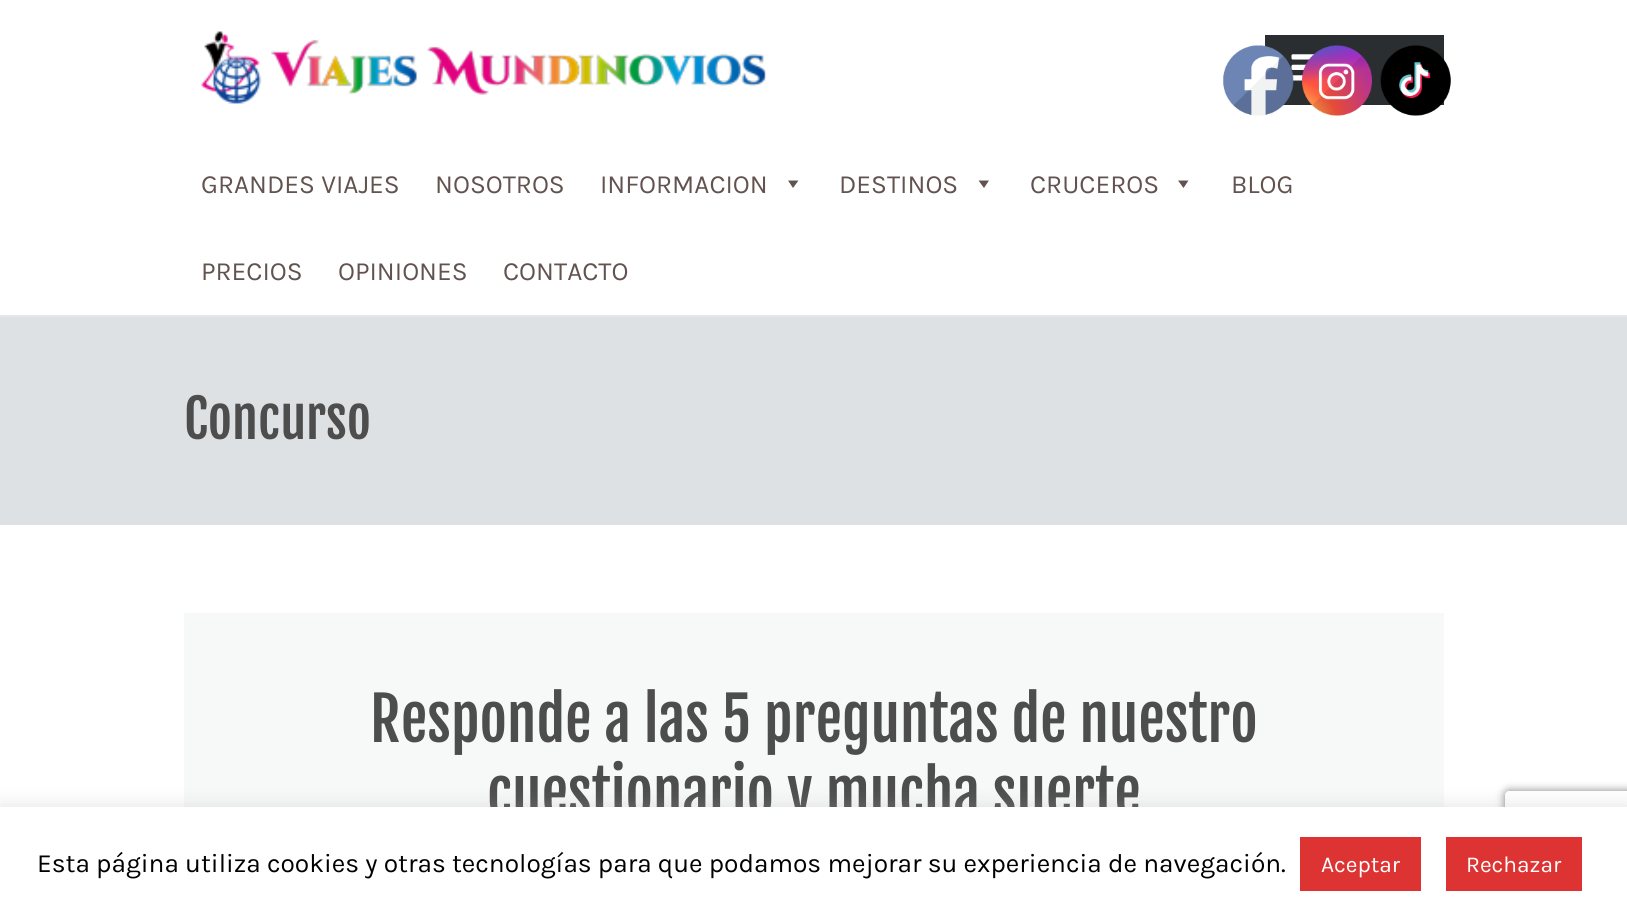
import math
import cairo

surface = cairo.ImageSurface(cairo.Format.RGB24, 1627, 919)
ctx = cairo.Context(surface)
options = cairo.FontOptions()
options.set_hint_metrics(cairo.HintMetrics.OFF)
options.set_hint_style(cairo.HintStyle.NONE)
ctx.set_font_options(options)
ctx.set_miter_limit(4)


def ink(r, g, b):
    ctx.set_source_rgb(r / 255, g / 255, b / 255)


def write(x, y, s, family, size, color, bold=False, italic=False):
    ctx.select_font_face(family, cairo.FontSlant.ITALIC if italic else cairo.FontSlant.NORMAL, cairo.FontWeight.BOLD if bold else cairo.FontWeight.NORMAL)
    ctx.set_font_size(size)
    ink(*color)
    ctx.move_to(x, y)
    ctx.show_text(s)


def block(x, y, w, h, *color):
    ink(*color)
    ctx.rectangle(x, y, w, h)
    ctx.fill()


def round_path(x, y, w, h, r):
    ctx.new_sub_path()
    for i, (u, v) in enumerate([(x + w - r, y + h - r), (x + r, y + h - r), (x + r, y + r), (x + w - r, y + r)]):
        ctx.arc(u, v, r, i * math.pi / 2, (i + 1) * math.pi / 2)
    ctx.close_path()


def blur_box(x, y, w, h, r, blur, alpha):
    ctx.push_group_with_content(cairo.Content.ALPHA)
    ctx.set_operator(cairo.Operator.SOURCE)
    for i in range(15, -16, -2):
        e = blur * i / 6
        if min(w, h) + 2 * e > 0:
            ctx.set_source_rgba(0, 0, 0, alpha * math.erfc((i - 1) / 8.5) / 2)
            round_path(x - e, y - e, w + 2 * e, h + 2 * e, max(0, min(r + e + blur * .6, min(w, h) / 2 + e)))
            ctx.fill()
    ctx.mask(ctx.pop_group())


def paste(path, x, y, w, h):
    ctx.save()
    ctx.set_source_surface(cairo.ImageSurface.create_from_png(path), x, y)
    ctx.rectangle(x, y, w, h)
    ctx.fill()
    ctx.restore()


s1 = dict(family="Karla", size=26.25, color=(98, 83, 80))
s2 = dict(family="Fjalla One", size=52.5, color=(77, 77, 77))
s3 = dict(family="Fjalla One", size=59.5, color=(77, 77, 77))
s4 = dict(family="Karla", size=26.25, color=(0, 0, 0))
s5 = dict(family="Karla", size=22.75, color=(255, 255, 255))

ink(255, 255, 255)
ctx.paint()
block(1265, 35, 179, 70, 42, 46, 48)
paste("pic5.png", 1291, 54, 24, 27)
paste("pic1.png", 1223, 45, 71, 71)
paste("pic2.png", 1302, 45, 70, 71)
paste("pic3.png", 1380, 45, 71, 71)
block(0, 315, 1627, 2, 230, 230, 230)
paste("pic4.png", 200, 31, 567, 73)
write(201, 193, "GRANDES VIAJES", **s1)
write(435, 193, "NOSOTROS", **s1)
write(600, 193, "INFORMACION", **s1)
ctx.new_path()
ctx.move_to(798.5, 180.5)
ctx.line_to(793, 188)
ctx.line_to(788, 180.5)
ctx.close_path()
ctx.fill()
write(839, 193, "DESTINOS", **s1)
ctx.new_path()
ctx.move_to(989, 180.5)
ctx.line_to(984, 188)
ctx.line_to(978.5, 180.5)
ctx.close_path()
ctx.fill()
write(1030, 193, "CRUCEROS", **s1)
ctx.new_path()
ctx.move_to(1188.5, 180.5)
ctx.line_to(1183.5, 188)
ctx.line_to(1178, 180.5)
ctx.close_path()
ctx.fill()
write(1231, 193, "BLOG", **s1)
write(201, 280, "PRECIOS", **s1)
write(338, 280, "OPINIONES", **s1)
write(503, 280, "CONTACTO", **s1)
block(0, 317, 1627, 208, 222, 225, 227)
write(184, 439, "Concurso", **s2)
block(184, 613, 1260, 194, 247, 249, 249)
write(370, 742, "Responde a las 5 preguntas de nuestro", **s3)
write(487, 816, "cuestionario y mucha suerte", **s3)
ctx.save()
ctx.set_fill_rule(cairo.FillRule.EVEN_ODD)
ctx.new_path()
ctx.move_to(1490, 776)
ctx.line_to(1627, 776)
ctx.line_to(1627, 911)
ctx.line_to(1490, 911)
ctx.close_path()
ctx.move_to(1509, 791)
ctx.line_to(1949, 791)
ctx.curve_to(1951, 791, 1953, 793, 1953, 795)
ctx.line_to(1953, 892)
ctx.curve_to(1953, 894, 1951, 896, 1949, 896)
ctx.line_to(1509, 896)
ctx.curve_to(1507, 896, 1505, 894, 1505, 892)
ctx.line_to(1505, 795)
ctx.curve_to(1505, 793, 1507, 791, 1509, 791)
ctx.close_path()
ctx.clip()
ink(128, 128, 128)
blur_box(1505, 791, 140, 105, 4, 4.5, 1)
ctx.restore()
ink(172, 171, 171)
blur_box(0, 805, 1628, 114, 0, 9, 0.3)
block(0, 807, 1627, 112, 255, 255, 255)
write(37, 872, "Esta página utiliza cookies y otras tecnologías para que podamos mejorar su experiencia de navegación.", **s4)
block(1300, 837, 121, 54, 221, 51, 51)
write(1321, 872, "Aceptar", **s5)
block(1446, 837, 136, 54, 221, 51, 51)
write(1466, 872, "Rechazar", **s5)
surface.write_to_png("screenshot.png")
